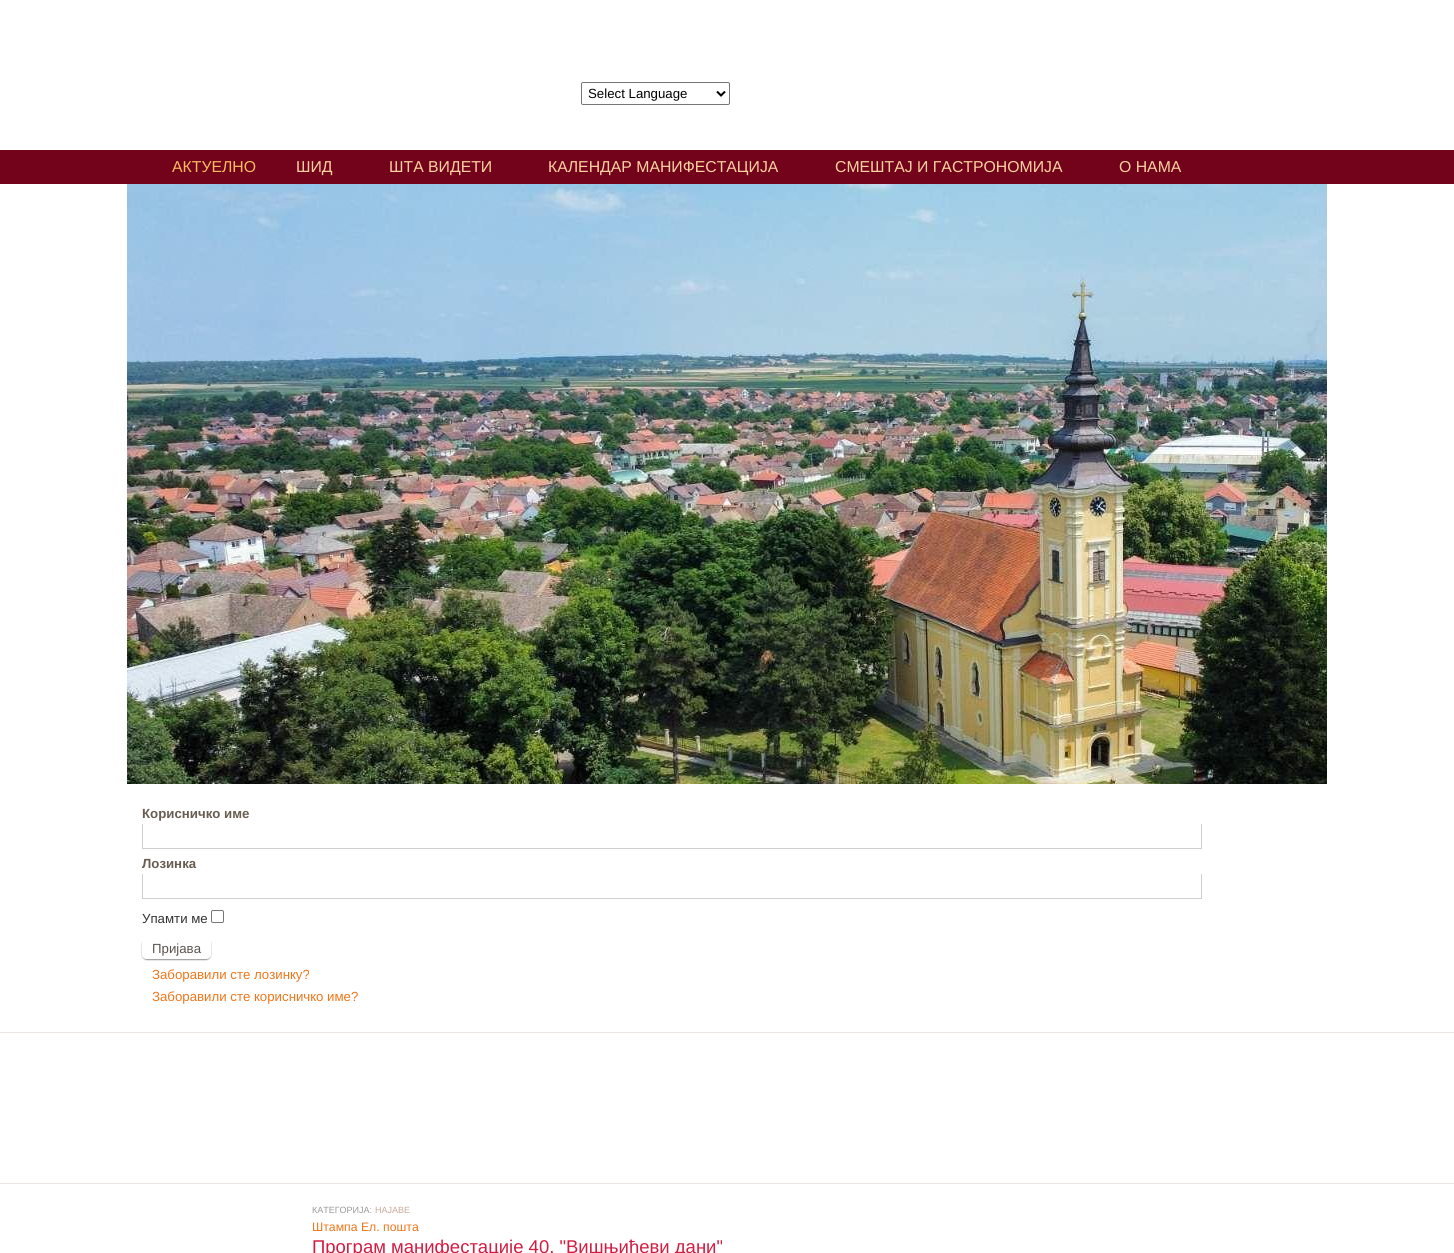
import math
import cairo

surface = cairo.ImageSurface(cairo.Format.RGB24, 1454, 1253)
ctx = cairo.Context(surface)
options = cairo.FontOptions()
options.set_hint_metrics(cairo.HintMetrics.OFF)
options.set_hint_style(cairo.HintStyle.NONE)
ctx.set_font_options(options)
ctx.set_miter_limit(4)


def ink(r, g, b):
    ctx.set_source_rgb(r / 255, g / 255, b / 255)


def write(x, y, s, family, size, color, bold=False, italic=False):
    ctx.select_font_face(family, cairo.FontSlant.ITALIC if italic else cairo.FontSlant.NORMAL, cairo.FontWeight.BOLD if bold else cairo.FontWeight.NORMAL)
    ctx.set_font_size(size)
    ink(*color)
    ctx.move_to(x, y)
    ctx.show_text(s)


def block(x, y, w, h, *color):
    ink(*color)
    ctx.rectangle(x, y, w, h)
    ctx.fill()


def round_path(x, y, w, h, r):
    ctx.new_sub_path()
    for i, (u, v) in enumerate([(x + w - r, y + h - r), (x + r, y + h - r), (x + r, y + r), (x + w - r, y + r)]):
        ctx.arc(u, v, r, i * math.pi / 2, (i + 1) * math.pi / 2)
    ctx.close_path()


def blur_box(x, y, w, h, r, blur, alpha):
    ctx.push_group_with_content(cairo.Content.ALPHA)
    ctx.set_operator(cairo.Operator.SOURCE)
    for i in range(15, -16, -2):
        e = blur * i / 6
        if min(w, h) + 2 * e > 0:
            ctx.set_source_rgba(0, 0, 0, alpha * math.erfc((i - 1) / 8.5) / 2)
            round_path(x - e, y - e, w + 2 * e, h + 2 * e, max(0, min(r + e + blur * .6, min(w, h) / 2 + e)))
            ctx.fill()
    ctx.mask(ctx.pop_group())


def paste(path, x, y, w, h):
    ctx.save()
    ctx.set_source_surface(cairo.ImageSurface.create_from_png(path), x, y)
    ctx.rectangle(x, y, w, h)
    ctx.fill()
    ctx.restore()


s1 = dict(family="Liberation Sans", size=13.25, color=(0, 0, 0))
s2 = dict(family="Liberation Sans", size=15.8, color=(249, 188, 97))
s3 = dict(family="Liberation Sans", size=15.8, color=(253, 211, 161))
s4 = dict(family="Liberation Sans", size=13.25, color=(105, 93, 81), bold=True)
s5 = dict(family="Liberation Sans", size=13.25, color=(51, 51, 51))
s6 = dict(family="Liberation Sans", size=13.25, color=(93, 84, 79))
s7 = dict(family="Liberation Sans", size=13.25, color=(239, 118, 26))
s8 = dict(family="Liberation Sans", size=9, color=(153, 153, 153))
s9 = dict(family="Liberation Sans", size=9, color=(202, 168, 154))
s10 = dict(family="Liberation Sans", size=12.25, color=(239, 118, 26))
s11 = dict(family="Liberation Sans", size=18.5, color=(212, 27, 65))

ink(255, 255, 255)
ctx.paint()
round_path(581.5, 82.5, 148, 22, 1.5)
ink(118, 118, 118)
ctx.set_line_width(1)
ctx.stroke()
ctx.new_path()
ctx.move_to(717, 91.5)
ctx.line_to(721, 95.5)
ctx.line_to(725, 91.5)
ink(0, 0, 0)
ctx.set_line_width(2)
ctx.stroke()
write(588, 98, "Select Language", **s1)
block(0, 150, 1454, 34, 115, 3, 27)
write(172, 172, "АКТУЕЛНО", **s2)
write(296, 172, "ШИД", **s3)
write(389, 172, "ШТА ВИДЕТИ", **s3)
write(548, 172, "КАЛЕНДАР МАНИФЕСТАЦИЈА", **s3)
write(835, 172, "СМЕШТАЈ И ГАСТРОНОМИЈА", **s3)
write(1119, 172, "О НАМА", **s3)
paste("pic1.png", 127, 184, 1200, 600)
block(0, 1032, 1454, 1, 235, 230, 226)
write(142, 818, "Корисничко име", **s4)
block(1201, 824, 1, 25, 208, 207, 205)
block(142, 848, 1060, 1, 208, 207, 205)
block(142, 824, 1, 25, 208, 207, 205)
write(142, 868, "Лозинка", **s4)
block(1201, 874, 1, 25, 208, 207, 205)
block(142, 898, 1060, 1, 208, 207, 205)
block(142, 874, 1, 25, 208, 207, 205)
write(142, 923, "Упамти ме", **s5)
round_path(211.5, 910.5, 12, 12, 1.5)
ink(118, 118, 118)
ctx.set_line_width(1)
ctx.stroke()
ctx.save()
ctx.set_fill_rule(cairo.FillRule.EVEN_ODD)
ctx.new_path()
ctx.move_to(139, 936)
ctx.line_to(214, 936)
ctx.line_to(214, 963)
ctx.line_to(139, 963)
ctx.close_path()
ctx.move_to(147, 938)
ctx.line_to(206, 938)
ctx.curve_to(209, 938, 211, 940, 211, 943)
ctx.line_to(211, 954)
ctx.curve_to(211, 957, 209, 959, 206, 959)
ctx.line_to(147, 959)
ctx.curve_to(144, 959, 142, 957, 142, 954)
ctx.line_to(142, 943)
ctx.curve_to(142, 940, 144, 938, 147, 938)
ctx.close_path()
ctx.clip()
ink(0, 0, 0)
blur_box(142, 939, 69, 21, 5, 0.5, 0.4)
ctx.restore()
write(152, 953, "Пријава", **s6)
write(152, 979, "Заборавили сте лозинку?", **s7)
write(152, 1001, "Заборавили сте корисничко име?", **s7)
block(0, 1183, 1454, 1, 235, 230, 226)
write(312, 1213, "КАТЕГОРИЈА:", **s8)
write(375, 1213, "НАЈАВЕ", **s9)
write(312, 1231, "Штампа Ел. пошта", **s10)
write(312, 1253, "Програм манифестације 40. \"Вишњићеви дани\"", **s11)
surface.write_to_png("screenshot.png")
